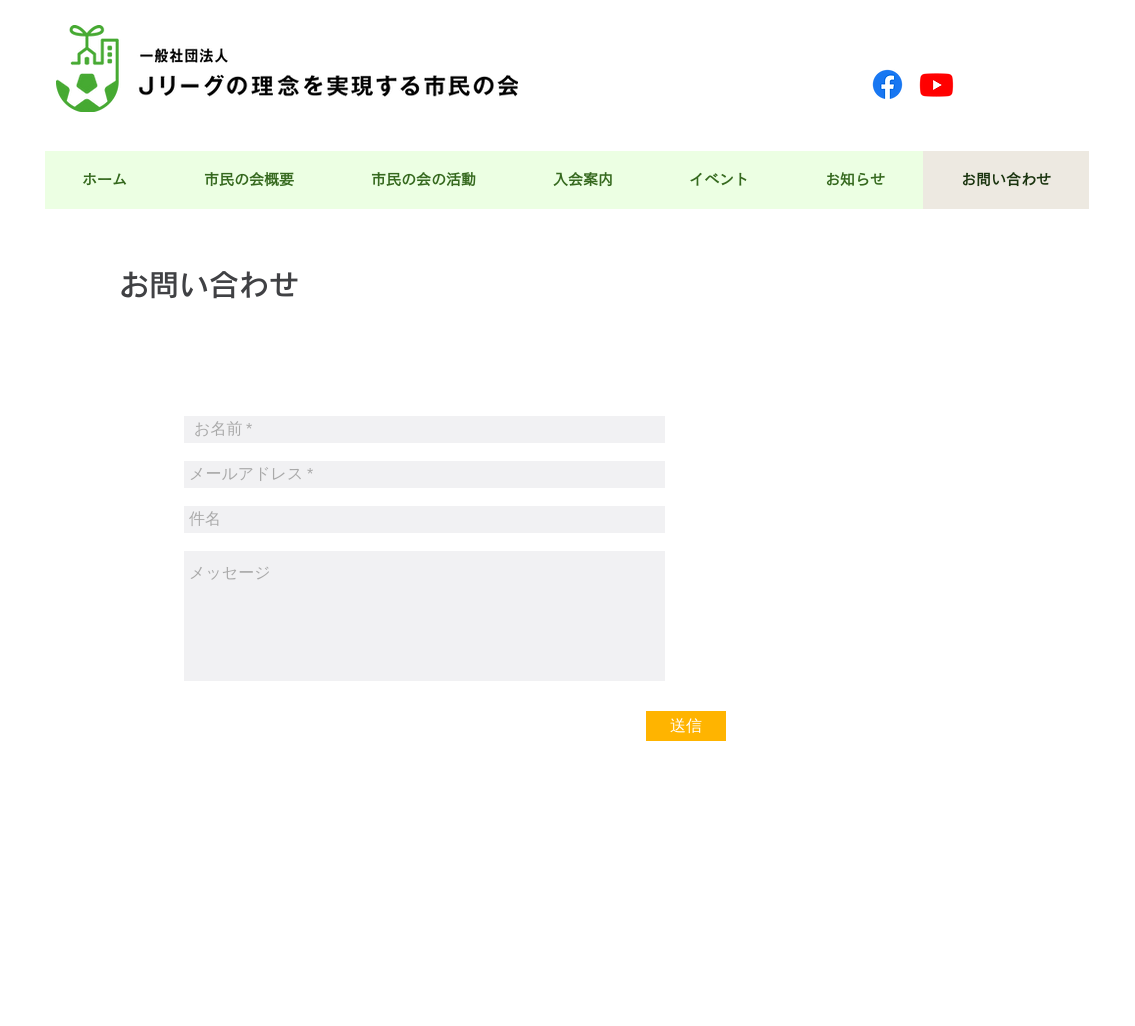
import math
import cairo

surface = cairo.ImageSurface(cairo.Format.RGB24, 1135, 1026)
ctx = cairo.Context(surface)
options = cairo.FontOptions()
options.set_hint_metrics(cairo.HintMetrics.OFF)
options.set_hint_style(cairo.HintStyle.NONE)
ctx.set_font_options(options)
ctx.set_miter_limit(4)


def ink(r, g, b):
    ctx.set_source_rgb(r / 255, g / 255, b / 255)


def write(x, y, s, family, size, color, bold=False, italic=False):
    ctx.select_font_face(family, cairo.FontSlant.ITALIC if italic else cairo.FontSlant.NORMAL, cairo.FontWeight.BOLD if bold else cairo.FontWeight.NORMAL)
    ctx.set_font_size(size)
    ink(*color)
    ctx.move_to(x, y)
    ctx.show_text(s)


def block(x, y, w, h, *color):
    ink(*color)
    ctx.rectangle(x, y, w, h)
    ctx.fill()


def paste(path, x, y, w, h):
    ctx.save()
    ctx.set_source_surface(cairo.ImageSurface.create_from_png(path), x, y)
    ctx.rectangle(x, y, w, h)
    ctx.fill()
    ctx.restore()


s1 = dict(family="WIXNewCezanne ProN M", size=15, color=(53, 105, 30), bold=True)
s2 = dict(family="WIXNewCezanne ProN M", size=15, color=(26, 52, 15), bold=True)
s3 = dict(family="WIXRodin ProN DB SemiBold", size=30, color=(64, 65, 68))
s4 = dict(family="WenQuanYi Zen Hei Medium", size=16, color=(169, 169, 169))
s5 = dict(family="Liberation Sans", size=16, color=(169, 169, 169))
s6 = dict(family="WenQuanYi Zen Hei Medium", size=16, color=(255, 255, 255))

ink(255, 255, 255)
ctx.paint()
paste("pic1.png", 56, 25, 462, 87)
paste("pic2.png", 872, 69, 31, 30)
paste("pic3.png", 919, 73, 35, 24)
block(45, 151, 878, 58, 236, 255, 227)
write(82, 185, "ホーム", **s1)
write(204, 185, "市民の会概要", **s1)
write(371, 185, "市民の会の活動", **s1)
write(553, 185, "入会案内", **s1)
write(689, 185, "イベント", **s1)
write(825, 185, "お知らせ", **s1)
block(923, 151, 166, 58, 237, 233, 225)
write(961, 185, "お問い合わせ", **s2)
write(119, 296, "お問い合わせ", **s3)
block(184, 416, 481, 27, 241, 241, 243)
write(194, 434, "お名前", **s4)
write(246, 434, "*", **s5)
block(184, 461, 481, 27, 241, 241, 243)
write(189, 479, "メールアドレス", **s4)
write(307, 479, "*", **s5)
block(184, 506, 481, 27, 241, 241, 243)
write(189, 524, "件名", **s4)
block(184, 551, 481, 130, 241, 241, 243)
write(189, 578, "メッセージ", **s4)
block(646, 711, 80, 30, 255, 180, 0)
write(670, 731, "送信", **s6)
surface.write_to_png("screenshot.png")
